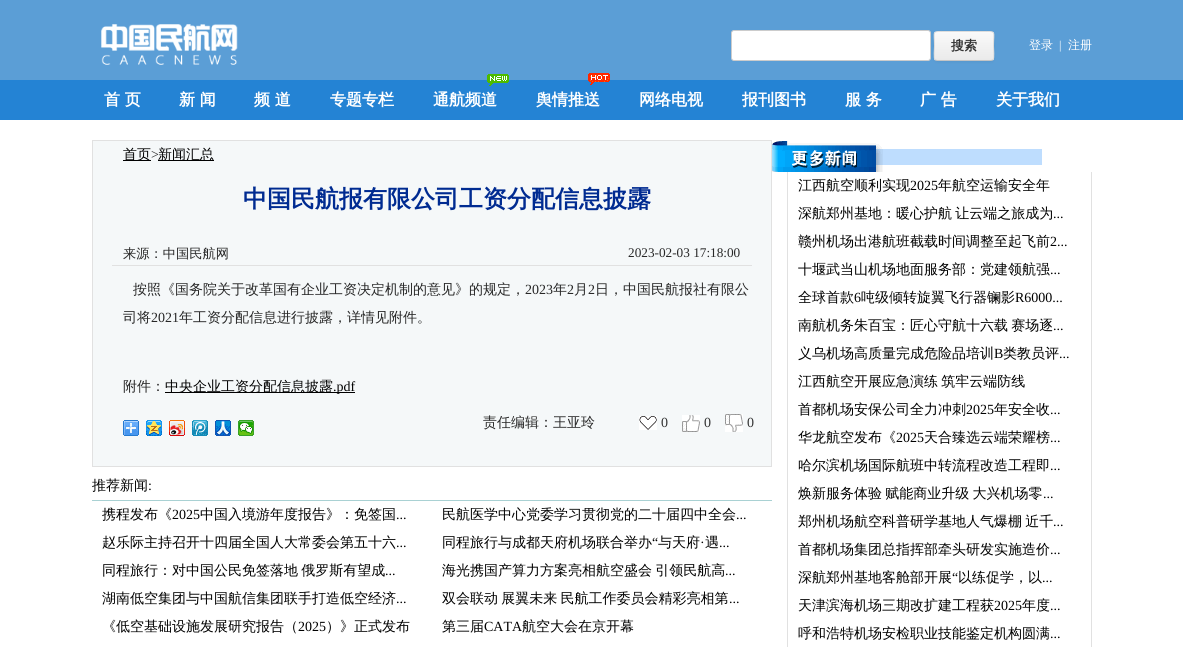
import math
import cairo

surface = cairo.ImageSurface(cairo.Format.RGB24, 1183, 647)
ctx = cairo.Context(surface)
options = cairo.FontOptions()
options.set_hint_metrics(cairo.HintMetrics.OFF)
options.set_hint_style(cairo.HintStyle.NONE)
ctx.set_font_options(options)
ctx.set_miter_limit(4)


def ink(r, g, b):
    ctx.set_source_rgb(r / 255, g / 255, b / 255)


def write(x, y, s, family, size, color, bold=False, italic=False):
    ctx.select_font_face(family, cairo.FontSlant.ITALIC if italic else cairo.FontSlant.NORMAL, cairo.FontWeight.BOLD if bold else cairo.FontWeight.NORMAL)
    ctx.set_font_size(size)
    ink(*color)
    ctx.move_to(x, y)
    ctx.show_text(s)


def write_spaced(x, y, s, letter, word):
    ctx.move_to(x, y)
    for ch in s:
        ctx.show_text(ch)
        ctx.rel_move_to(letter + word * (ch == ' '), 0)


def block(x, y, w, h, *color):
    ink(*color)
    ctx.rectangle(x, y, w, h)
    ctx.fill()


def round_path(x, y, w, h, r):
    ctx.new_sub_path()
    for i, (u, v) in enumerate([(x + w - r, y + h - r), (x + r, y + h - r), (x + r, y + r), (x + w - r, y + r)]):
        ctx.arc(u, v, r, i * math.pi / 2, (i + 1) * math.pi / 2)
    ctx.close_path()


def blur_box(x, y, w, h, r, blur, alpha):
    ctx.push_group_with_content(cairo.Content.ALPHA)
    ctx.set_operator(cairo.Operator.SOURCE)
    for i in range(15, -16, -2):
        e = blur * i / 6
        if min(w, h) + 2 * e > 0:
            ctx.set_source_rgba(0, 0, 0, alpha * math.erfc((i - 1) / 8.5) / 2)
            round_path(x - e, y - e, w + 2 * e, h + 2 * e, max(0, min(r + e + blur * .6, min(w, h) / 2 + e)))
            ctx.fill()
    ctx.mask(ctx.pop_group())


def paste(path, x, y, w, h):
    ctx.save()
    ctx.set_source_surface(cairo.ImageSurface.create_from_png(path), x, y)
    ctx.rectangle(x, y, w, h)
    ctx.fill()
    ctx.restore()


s1 = dict(family="WenQuanYi Zen Hei", size=13, color=(51, 51, 51), bold=True)
s2 = dict(family="WenQuanYi Zen Hei Medium", size=12, color=(255, 255, 255))
s3 = dict(family="Liberation Serif", size=12, color=(255, 255, 255))
s4 = dict(family="WenQuanYi Zen Hei", size=16, color=(255, 255, 255), bold=True)
s5 = dict(family="WenQuanYi Zen Hei Medium", size=14, color=(0, 0, 0))
s6 = dict(family="Liberation Serif", size=14, color=(39, 39, 39))
s7 = dict(family="WenQuanYi Zen Hei", size=24, color=(0, 43, 145), bold=True)
s8 = dict(family="WenQuanYi Zen Hei Medium", size=13.25, color=(39, 39, 39))
s9 = dict(family="Liberation Serif", size=13.25, color=(39, 39, 39))
s10 = dict(family="WenQuanYi Zen Hei Medium", size=14, color=(39, 39, 39))
s11 = dict(family="Liberation Serif", size=14, color=(0, 0, 0))
s12 = dict(family="Liberation Serif", size=14, color=(51, 51, 51))

ink(255, 255, 255)
ctx.paint()
paste("pic1.png", 0, 0, 1183, 120)
paste("pic2.png", 101, 24, 137, 41)
ink(255, 255, 255)
round_path(731.5, 30.5, 199, 30, 2.5)
ctx.fill_preserve()
ink(204, 204, 204)
ctx.set_line_width(1)
ctx.stroke()
ink(0, 0, 0)
blur_box(934, 32, 60, 30, 3, 1.5, 0.05)
ctx.save()
round_path(934, 31, 60, 30, 3)
ctx.clip()
gradient = cairo.LinearGradient(964, 32, 964, 60)
gradient.add_color_stop_rgba(0, 0.98, 0.98, 0.98, 1)
gradient.add_color_stop_rgba(1, 0.918, 0.918, 0.918, 1)
ctx.set_source(gradient)
ctx.rectangle(934, 32, 60, 28)
ctx.fill()
ctx.restore()
ctx.new_path()
ctx.move_to(993, 60)
ctx.line_to(991, 60.5)
ctx.line_to(937, 60.5)
ctx.line_to(935, 60)
ink(197, 197, 197)
ctx.stroke()
ctx.new_path()
ctx.move_to(935, 60)
ctx.curve_to(933.5, 58, 934.5, 48.5, 934.5, 46)
ctx.curve_to(934.5, 30, 931, 31.5, 946, 31.5)
ctx.line_to(982, 31.5)
ctx.curve_to(997, 31.5, 993.5, 30, 993.5, 46)
ctx.curve_to(993.5, 48.5, 994.5, 58, 993, 60)
ink(221, 221, 221)
ctx.stroke()
write(951, 50, "搜索", **s1)
write(1029, 49, "登录", **s2)
write(1059, 49, "|", **s3)
write(1068, 49, "注册", **s2)
write(104, 105, "首 页", **s4)
write(179, 105, "新 闻", **s4)
write(254, 105, "频 道", **s4)
write(330, 105, "专题专栏", **s4)
paste("pic3.png", 487, 74, 22, 12)
write(433, 105, "通航频道", **s4)
paste("pic4.png", 588, 73, 22, 12)
write(536, 105, "舆情推送", **s4)
write(639, 105, "网络电视", **s4)
write(742, 105, "报刊图书", **s4)
write(845, 105, "服 务", **s4)
write(920, 105, "广 告", **s4)
write(996, 105, "关于我们", **s4)
block(93, 141, 678, 325, 245, 248, 249)
block(92, 140, 680, 1, 225, 225, 225)
block(771, 140, 1, 327, 225, 225, 225)
block(92, 466, 680, 1, 225, 225, 225)
block(92, 140, 1, 327, 225, 225, 225)
block(123, 160, 28, 1, 0, 0, 0)
write(123, 159, "首页", **s5)
write(151, 159, ">", **s6)
block(158, 160, 56, 1, 0, 0, 0)
write(158, 159, "新闻汇总", **s5)
write(243, 207, "中国民航报有限公司工资分配信息披露", **s7)
write(123, 258, "来源：中国民航网", **s8)
write(628, 257, "2023-02-03 17:18:00", **s9)
block(112, 265, 640, 1, 225, 225, 225)
write(133, 294, "按照《国务院关于改革国有企业工资决定机制的意见》的规定，", **s10)
write(525, 294, "2023", **s6)
write(553, 294, "年", **s10)
write(567, 294, "2", **s6)
write(574, 294, "月", **s10)
write(588, 294, "2", **s6)
write(595, 294, "日，中国民航报社有限公", **s10)
write(123, 322, "司将", **s10)
write(151, 322, "2021", **s6)
write(179, 322, "年工资分配信息进行披露，详情见附件。", **s10)
write(123, 391, "附件：", **s10)
block(165, 392, 190, 1, 0, 0, 0)
write(165, 391, "中央企业工资分配信息披露", **s5)
write(333, 391, ".pdf", **s11)
paste("pic5.png", 123, 420, 16, 16)
paste("pic6.png", 146, 420, 16, 16)
paste("pic7.png", 169, 420, 16, 16)
paste("pic8.png", 192, 420, 16, 16)
paste("pic9.png", 215, 420, 16, 16)
paste("pic10.png", 238, 420, 16, 16)
write(483, 427, "责任编辑：王亚玲", **s10)
paste("pic11.png", 639, 416, 18, 14)
write(661, 427, "0", **s12)
paste("pic12.png", 682, 415, 18, 17)
write(704, 427, "0", **s12)
paste("pic13.png", 725, 414, 18, 18)
write(747, 427, "0", **s12)
block(92, 500, 680, 1, 169, 209, 211)
write(92, 490, "推荐新闻", **s5)
write(148, 490, ":", **s11)
write(102, 519, "携程发布《", **s5)
write(172, 519, "2025", **s11)
write(200, 519, "中国入境游年度报告》：免签国", **s5)
write(396, 519, "...", **s11)
write(102, 547, "赵乐际主持召开十四届全国人大常委会第五十六", **s5)
write(396, 547, "...", **s11)
ctx.select_font_face("WenQuanYi Zen Hei Medium")
write_spaced(102, 575, "同程旅行：对中国公民免签落地 俄罗斯有望成", 0, -1)
write(385, 575, "...", **s11)
write(102, 603, "湖南低空集团与中国航信集团联手打造低空经济", **s5)
write(396, 603, "...", **s11)
write(102, 631, "《低空基础设施发展研究报告（", **s5)
write(298, 631, "2025", **s11)
write(326, 631, "）》正式发布", **s5)
write(442, 519, "民航医学中心党委学习贯彻党的二十届四中全会", **s5)
write(736, 519, "...", **s11)
write(442, 547, "同程旅行与成都天府机场联合举办", **s5)
write(652, 547, "“", **s11)
write(658, 547, "与天府", **s5)
write(705, 547, "遇", **s5)
write(700, 547, "·", **s11)
write(719, 547, "...", **s11)
ctx.select_font_face("WenQuanYi Zen Hei Medium")
write_spaced(442, 575, "海光携国产算力方案亮相航空盛会 引领民航高", 0, -1)
write(725, 575, "...", **s11)
ctx.select_font_face("WenQuanYi Zen Hei Medium")
write_spaced(442, 603, "双会联动 展翼未来 民航工作委员会精彩亮相第", 0, -1)
write(729, 603, "...", **s11)
write(442, 631, "第三届", **s5)
write(484, 631, "CATA", **s11)
write(522, 631, "航空大会在京开幕", **s5)
paste("pic14.png", 772, 141, 270, 31)
block(1091, 172, 1, 475, 225, 225, 225)
block(787, 172, 1, 475, 225, 225, 225)
write(798, 190, "江西航空顺利实现", **s5)
write(910, 190, "2025", **s11)
write(938, 190, "年航空运输安全年", **s5)
write_spaced(798, 218, "深航郑州基地：暖心护航 让云端之旅成为", 0, -1)
write(1053, 218, "...", **s11)
write(798, 246, "赣州机场出港航班截载时间调整至起飞前", **s5)
write(1050, 246, "2...", **s11)
write(798, 274, "十堰武当山机场地面服务部：党建领航强", **s5)
write(1050, 274, "...", **s11)
write(798, 302, "全球首款", **s5)
write(854, 302, "6", **s11)
write(861, 302, "吨级倾转旋翼飞行器镧影", **s5)
write(1015, 302, "R6000...", **s11)
ctx.select_font_face("WenQuanYi Zen Hei Medium")
write_spaced(798, 330, "南航机务朱百宝：匠心守航十六载 赛场逐", 0, -1)
write(1053, 330, "...", **s11)
write(798, 358, "义乌机场高质量完成危险品培训", **s5)
write(994, 358, "B", **s11)
write(1003, 358, "类教员评", **s5)
write(1059, 358, "...", **s11)
ctx.select_font_face("WenQuanYi Zen Hei Medium")
write_spaced(798, 386, "江西航空开展应急演练 筑牢云端防线", 0, -1)
write(798, 414, "首都机场安保公司全力冲刺", **s5)
write(966, 414, "2025", **s11)
write(994, 414, "年安全收", **s5)
write(1050, 414, "...", **s11)
write(798, 442, "华龙航空发布《", **s5)
write(896, 442, "2025", **s11)
write(924, 442, "天合臻选云端荣耀榜", **s5)
write(1050, 442, "...", **s11)
write(798, 470, "哈尔滨机场国际航班中转流程改造工程即", **s5)
write(1050, 470, "...", **s11)
ctx.select_font_face("WenQuanYi Zen Hei Medium")
write_spaced(798, 498, "焕新服务体验 赋能商业升级 大兴机场零", 0, -1)
write(1043, 498, "...", **s11)
ctx.select_font_face("WenQuanYi Zen Hei Medium")
write_spaced(798, 526, "郑州机场航空科普研学基地人气爆棚 近千", 0, -1)
write(1053, 526, "...", **s11)
write(798, 554, "首都机场集团总指挥部牵头研发实施造价", **s5)
write(1050, 554, "...", **s11)
write(798, 582, "深航郑州基地客舱部开展", **s5)
write(952, 582, "“", **s11)
write(958, 582, "以练促学，以", **s5)
write(1042, 582, "...", **s11)
write(798, 610, "天津滨海机场三期改扩建工程获", **s5)
write(994, 610, "2025", **s11)
write(1022, 610, "年度", **s5)
write(1050, 610, "...", **s11)
write(798, 638, "呼和浩特机场安检职业技能鉴定机构圆满", **s5)
write(1050, 638, "...", **s11)
surface.write_to_png("screenshot.png")
